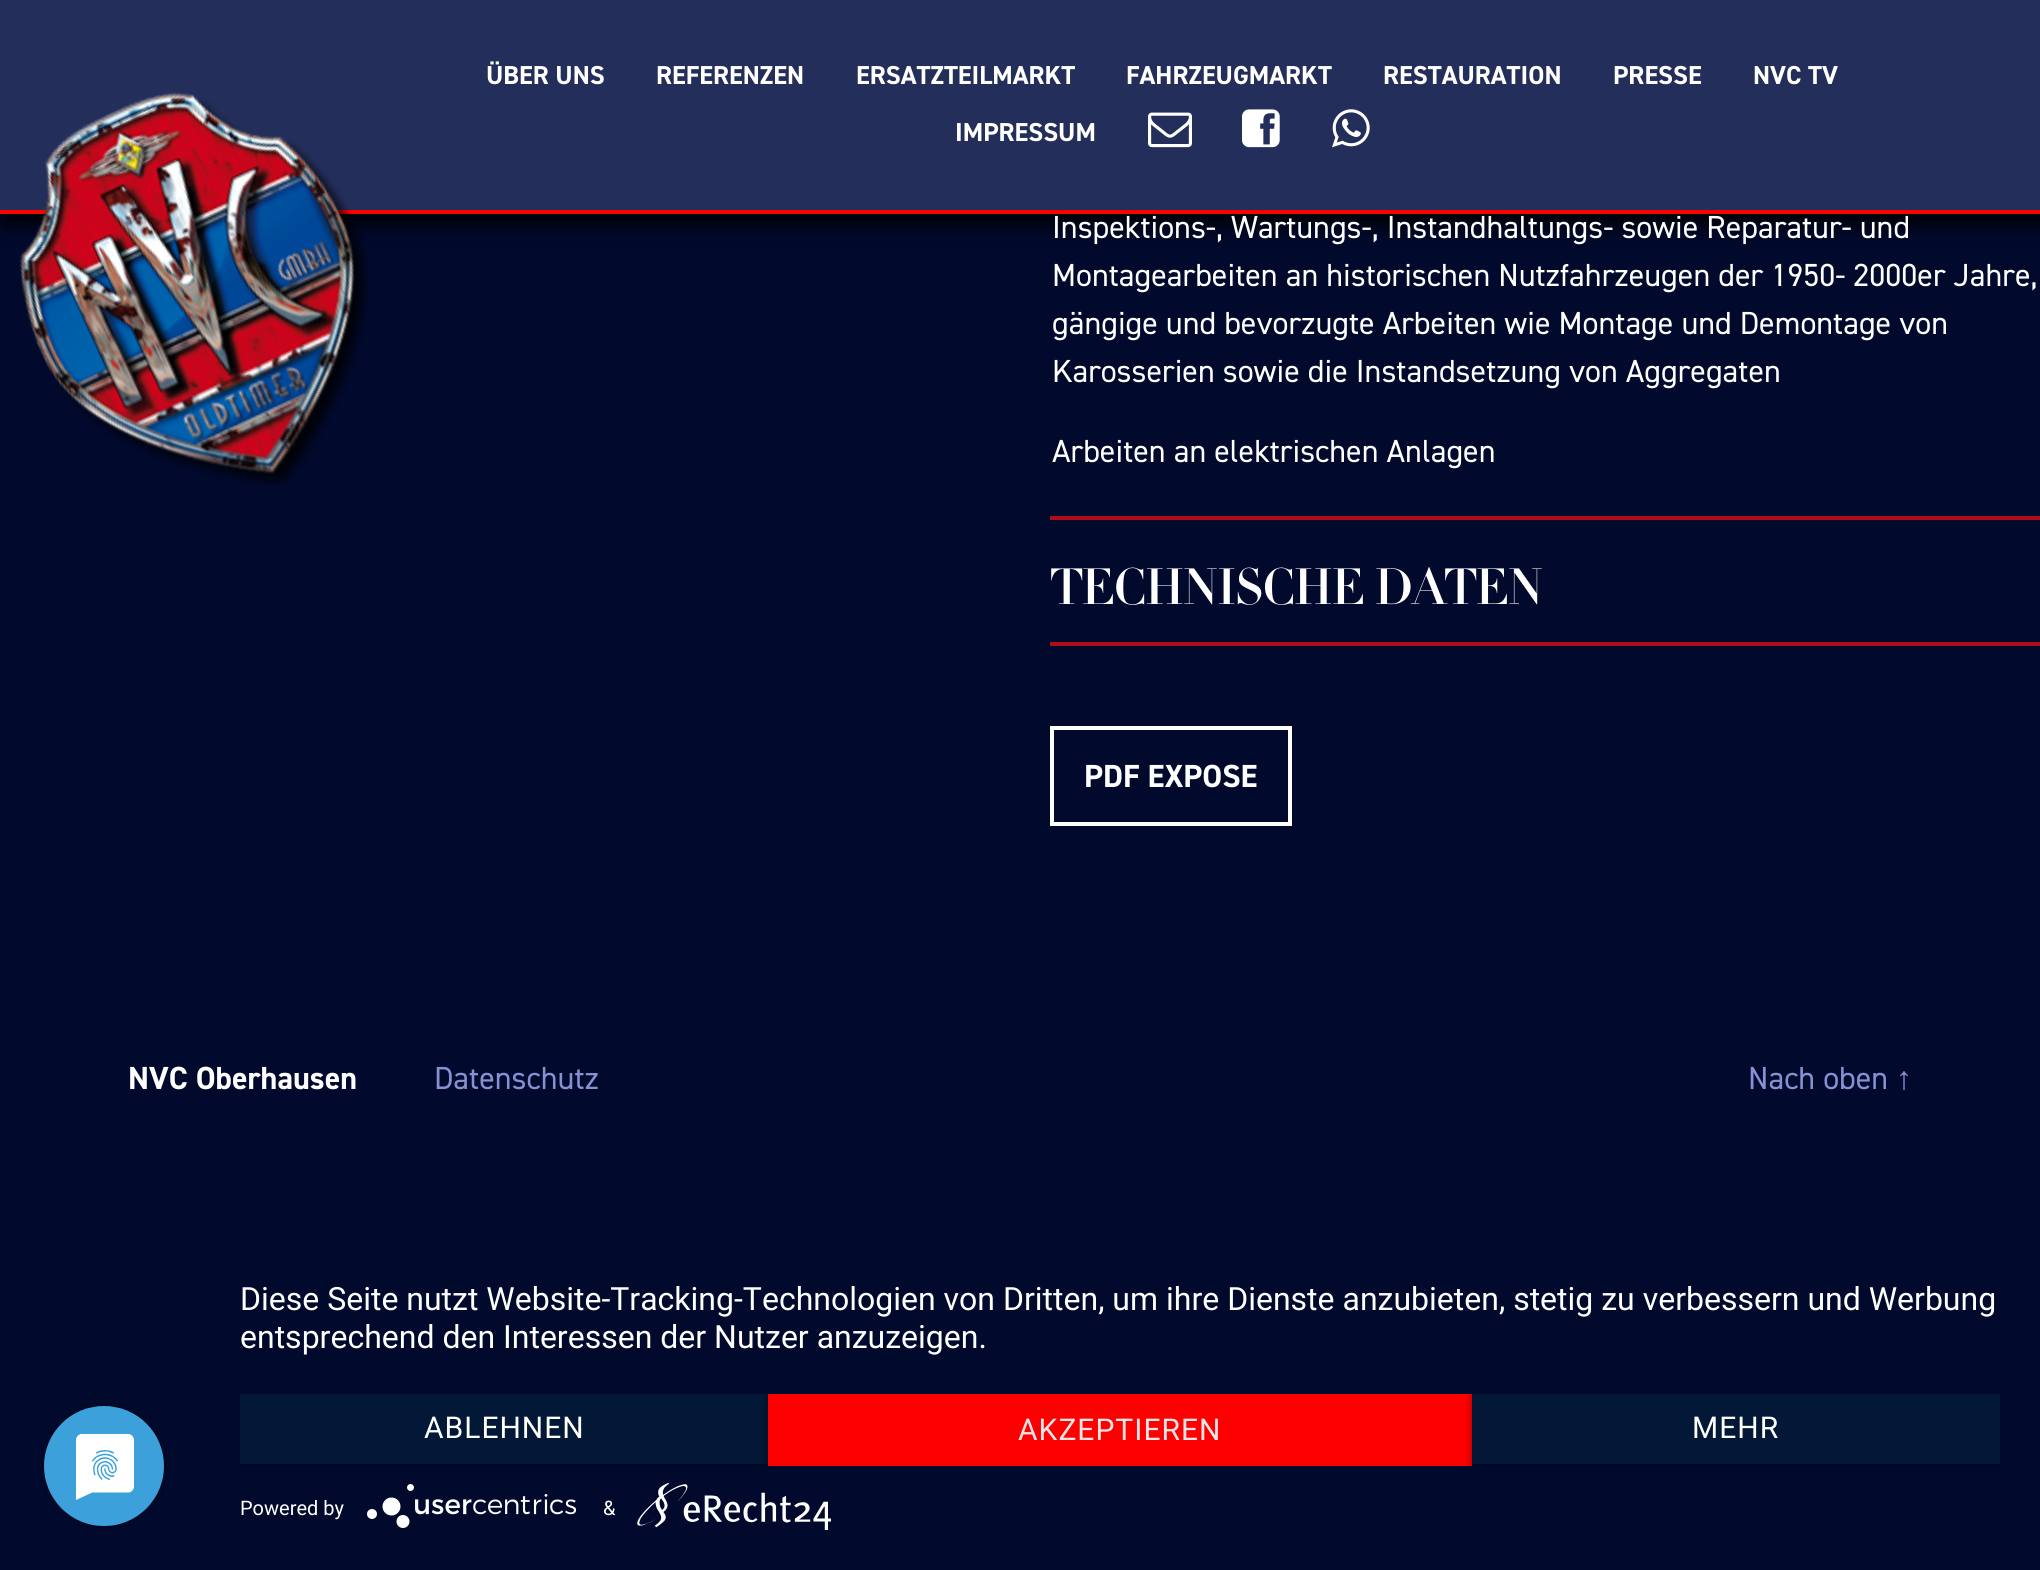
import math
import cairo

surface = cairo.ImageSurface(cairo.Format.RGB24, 2040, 1570)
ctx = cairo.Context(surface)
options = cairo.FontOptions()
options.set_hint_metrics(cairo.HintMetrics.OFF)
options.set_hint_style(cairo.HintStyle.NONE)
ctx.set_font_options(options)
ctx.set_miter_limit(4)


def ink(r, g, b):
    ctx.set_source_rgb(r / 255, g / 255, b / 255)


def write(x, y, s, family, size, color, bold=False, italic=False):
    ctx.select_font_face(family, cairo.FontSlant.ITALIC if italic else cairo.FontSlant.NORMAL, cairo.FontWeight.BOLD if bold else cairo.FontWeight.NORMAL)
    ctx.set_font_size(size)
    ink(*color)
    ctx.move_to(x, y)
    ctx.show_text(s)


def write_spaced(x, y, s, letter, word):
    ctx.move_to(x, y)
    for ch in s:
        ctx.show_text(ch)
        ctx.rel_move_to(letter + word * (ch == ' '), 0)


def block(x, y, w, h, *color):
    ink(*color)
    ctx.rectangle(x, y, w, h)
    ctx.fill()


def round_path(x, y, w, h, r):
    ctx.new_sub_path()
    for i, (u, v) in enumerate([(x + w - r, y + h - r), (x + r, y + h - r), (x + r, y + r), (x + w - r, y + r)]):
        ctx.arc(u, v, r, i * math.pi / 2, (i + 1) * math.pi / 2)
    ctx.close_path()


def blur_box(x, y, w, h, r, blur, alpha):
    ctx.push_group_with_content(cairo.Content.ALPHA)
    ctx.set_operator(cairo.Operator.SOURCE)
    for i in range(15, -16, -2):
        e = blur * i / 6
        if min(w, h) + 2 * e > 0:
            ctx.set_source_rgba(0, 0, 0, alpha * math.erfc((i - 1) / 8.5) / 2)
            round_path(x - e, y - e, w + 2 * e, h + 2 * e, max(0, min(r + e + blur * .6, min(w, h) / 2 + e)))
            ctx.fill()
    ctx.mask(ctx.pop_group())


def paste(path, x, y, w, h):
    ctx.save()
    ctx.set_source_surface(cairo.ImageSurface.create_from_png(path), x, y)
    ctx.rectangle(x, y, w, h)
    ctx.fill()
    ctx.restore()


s1 = dict(family="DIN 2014", size=26, color=(255, 255, 255), bold=True)
s2 = dict(family="DIN 2014", size=32, color=(255, 255, 255))
s3 = dict(family="DIN 2014", size=32, color=(255, 255, 255), bold=True)
s4 = dict(family="DIN 2014", size=32, color=(134, 145, 212))
s5 = dict(family="Liberation Sans", size=32, color=(134, 145, 212))
s6 = dict(family="Roboto", size=32, color=(255, 255, 255))
s7 = dict(family="Roboto", size=20, color=(255, 255, 255))

ink(1, 9, 44)
ctx.paint()
ink(0, 0, 0)
blur_box(4, 10, 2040, 214, 0, 10, 1)
block(0, 0, 2040, 210, 36, 46, 90)
block(0, 210, 2040, 4, 255, 0, 0)
paste("pic1.png", 19, 92, 350, 394)
write(486, 84, "ÜBER UNS", **s1)
write(656, 84, "REFERENZEN", **s1)
write(856, 84, "ERSATZTEILMARKT", **s1)
write(1126, 84, "FAHRZEUGMARKT", **s1)
write(1383, 84, "RESTAURATION", **s1)
write(1613, 84, "PRESSE", **s1)
write(1753, 84, "NVC TV", **s1)
write(955, 141, "IMPRESSUM", **s1)
paste("pic2.png", 1148, 112, 44, 36)
paste("pic3.png", 1242, 109, 38, 39)
paste("pic4.png", 1332, 109, 38, 39)
write(1052, 238, "Inspektions-, Wartungs-, Instandhaltungs- sowie Reparatur- und", **s2)
write(1052, 286, "Montagearbeiten an historischen Nutzfahrzeugen der 1950- 2000er Jahre,", **s2)
write(1052, 334, "gängige und bevorzugte Arbeiten wie Montage und Demontage von", **s2)
write(1052, 382, "Karosserien sowie die Instandsetzung von Aggregaten", **s2)
write(1052, 462, "Arbeiten an elektrischen Anlagen", **s2)
block(1050, 516, 990, 4, 175, 11, 25)
block(1050, 642, 990, 4, 175, 11, 25)
ctx.select_font_face("Didot")
ctx.set_font_size(50)
ink(255, 255, 255)
write_spaced(1050, 604, "TECHNISCHE DATEN", -2.1, 0)
ctx.rectangle(1052, 728, 238, 96)
ctx.set_line_width(4)
ctx.stroke()
write(1084, 787, "PDF EXPOSE", **s3)
write(128, 1089, "NVC Oberhausen", **s3)
write(434, 1089, "Datenschutz", **s4)
write(1748, 1089, "Nach oben", **s4)
write(1896, 1089, "↑", **s5)
paste("pic5.png", 42, 1404, 124, 124)
write(240, 1310, "Diese Seite nutzt Website-Tracking-Technologien von Dritten, um ihre Dienste anzubieten, stetig zu verbessern und Werbung", **s6)
write(240, 1348, "entsprechend den Interessen der Nutzer anzuzeigen.", **s6)
ctx.save()
ctx.rectangle(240, 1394, 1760, 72)
ctx.clip()
ink(0, 0, 0)
blur_box(240, 1396, 528, 70, 0, 4, 0.4)
ctx.restore()
block(240, 1394, 528, 70, 2, 24, 54)
ctx.set_font_size(30)
ink(255, 255, 255)
write_spaced(424, 1438, "ABLEHNEN", 1, 0)
ctx.save()
ctx.rectangle(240, 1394, 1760, 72)
ctx.clip()
ink(0, 0, 0)
blur_box(768, 1396, 704, 72, 0, 4, 0.4)
ctx.restore()
block(768, 1394, 704, 72, 255, 0, 0)
ink(230, 230, 230)
write_spaced(1018, 1440, "AKZEPTIEREN", 1, 0)
ctx.save()
ctx.rectangle(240, 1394, 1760, 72)
ctx.clip()
ink(0, 0, 0)
blur_box(1472, 1396, 528, 70, 0, 4, 0.4)
ctx.restore()
block(1472, 1394, 528, 70, 2, 24, 54)
ink(255, 255, 255)
write_spaced(1692, 1438, "MEHR", 1, 0)
write(240, 1515, "Powered by", **s7)
paste("pic6.png", 367, 1484, 210, 44)
write(603, 1515, "&", **s7)
paste("pic7.png", 637, 1483, 194, 47)
surface.write_to_png("screenshot.png")
